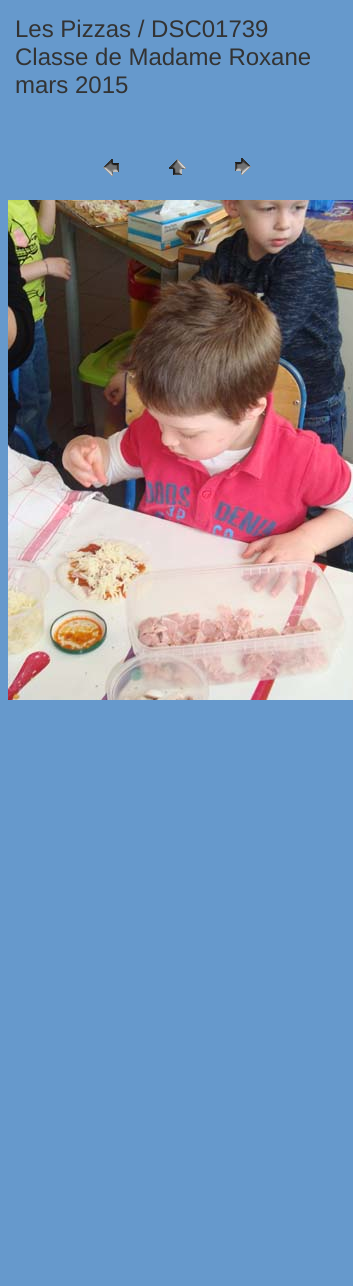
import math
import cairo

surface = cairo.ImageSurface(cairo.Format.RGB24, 353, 1286)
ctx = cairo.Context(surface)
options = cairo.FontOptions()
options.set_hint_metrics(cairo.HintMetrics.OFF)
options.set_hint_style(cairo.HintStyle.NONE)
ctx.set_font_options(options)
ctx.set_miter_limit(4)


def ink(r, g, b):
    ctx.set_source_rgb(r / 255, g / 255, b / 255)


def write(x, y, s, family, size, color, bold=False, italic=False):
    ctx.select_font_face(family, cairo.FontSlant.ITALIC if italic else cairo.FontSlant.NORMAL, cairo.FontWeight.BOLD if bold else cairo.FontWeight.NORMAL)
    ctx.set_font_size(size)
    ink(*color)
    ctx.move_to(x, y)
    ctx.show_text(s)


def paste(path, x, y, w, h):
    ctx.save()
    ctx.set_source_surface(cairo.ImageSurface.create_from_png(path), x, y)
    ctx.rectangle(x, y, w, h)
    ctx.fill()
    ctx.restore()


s1 = dict(family="Liberation Sans", size=24, color=(51, 51, 51))

ink(102, 153, 204)
ctx.paint()
write(15, 37, "Les Pizzas / DSC01739", **s1)
write(15, 65, "Classe de Madame Roxane", **s1)
write(15, 93, "mars 2015", **s1)
paste("pic1.png", 103, 159, 16, 17)
paste("pic2.png", 169, 159, 17, 16)
paste("pic3.png", 235, 158, 16, 17)
paste("pic4.png", 8, 200, 345, 500)
surface.write_to_png("screenshot.png")
